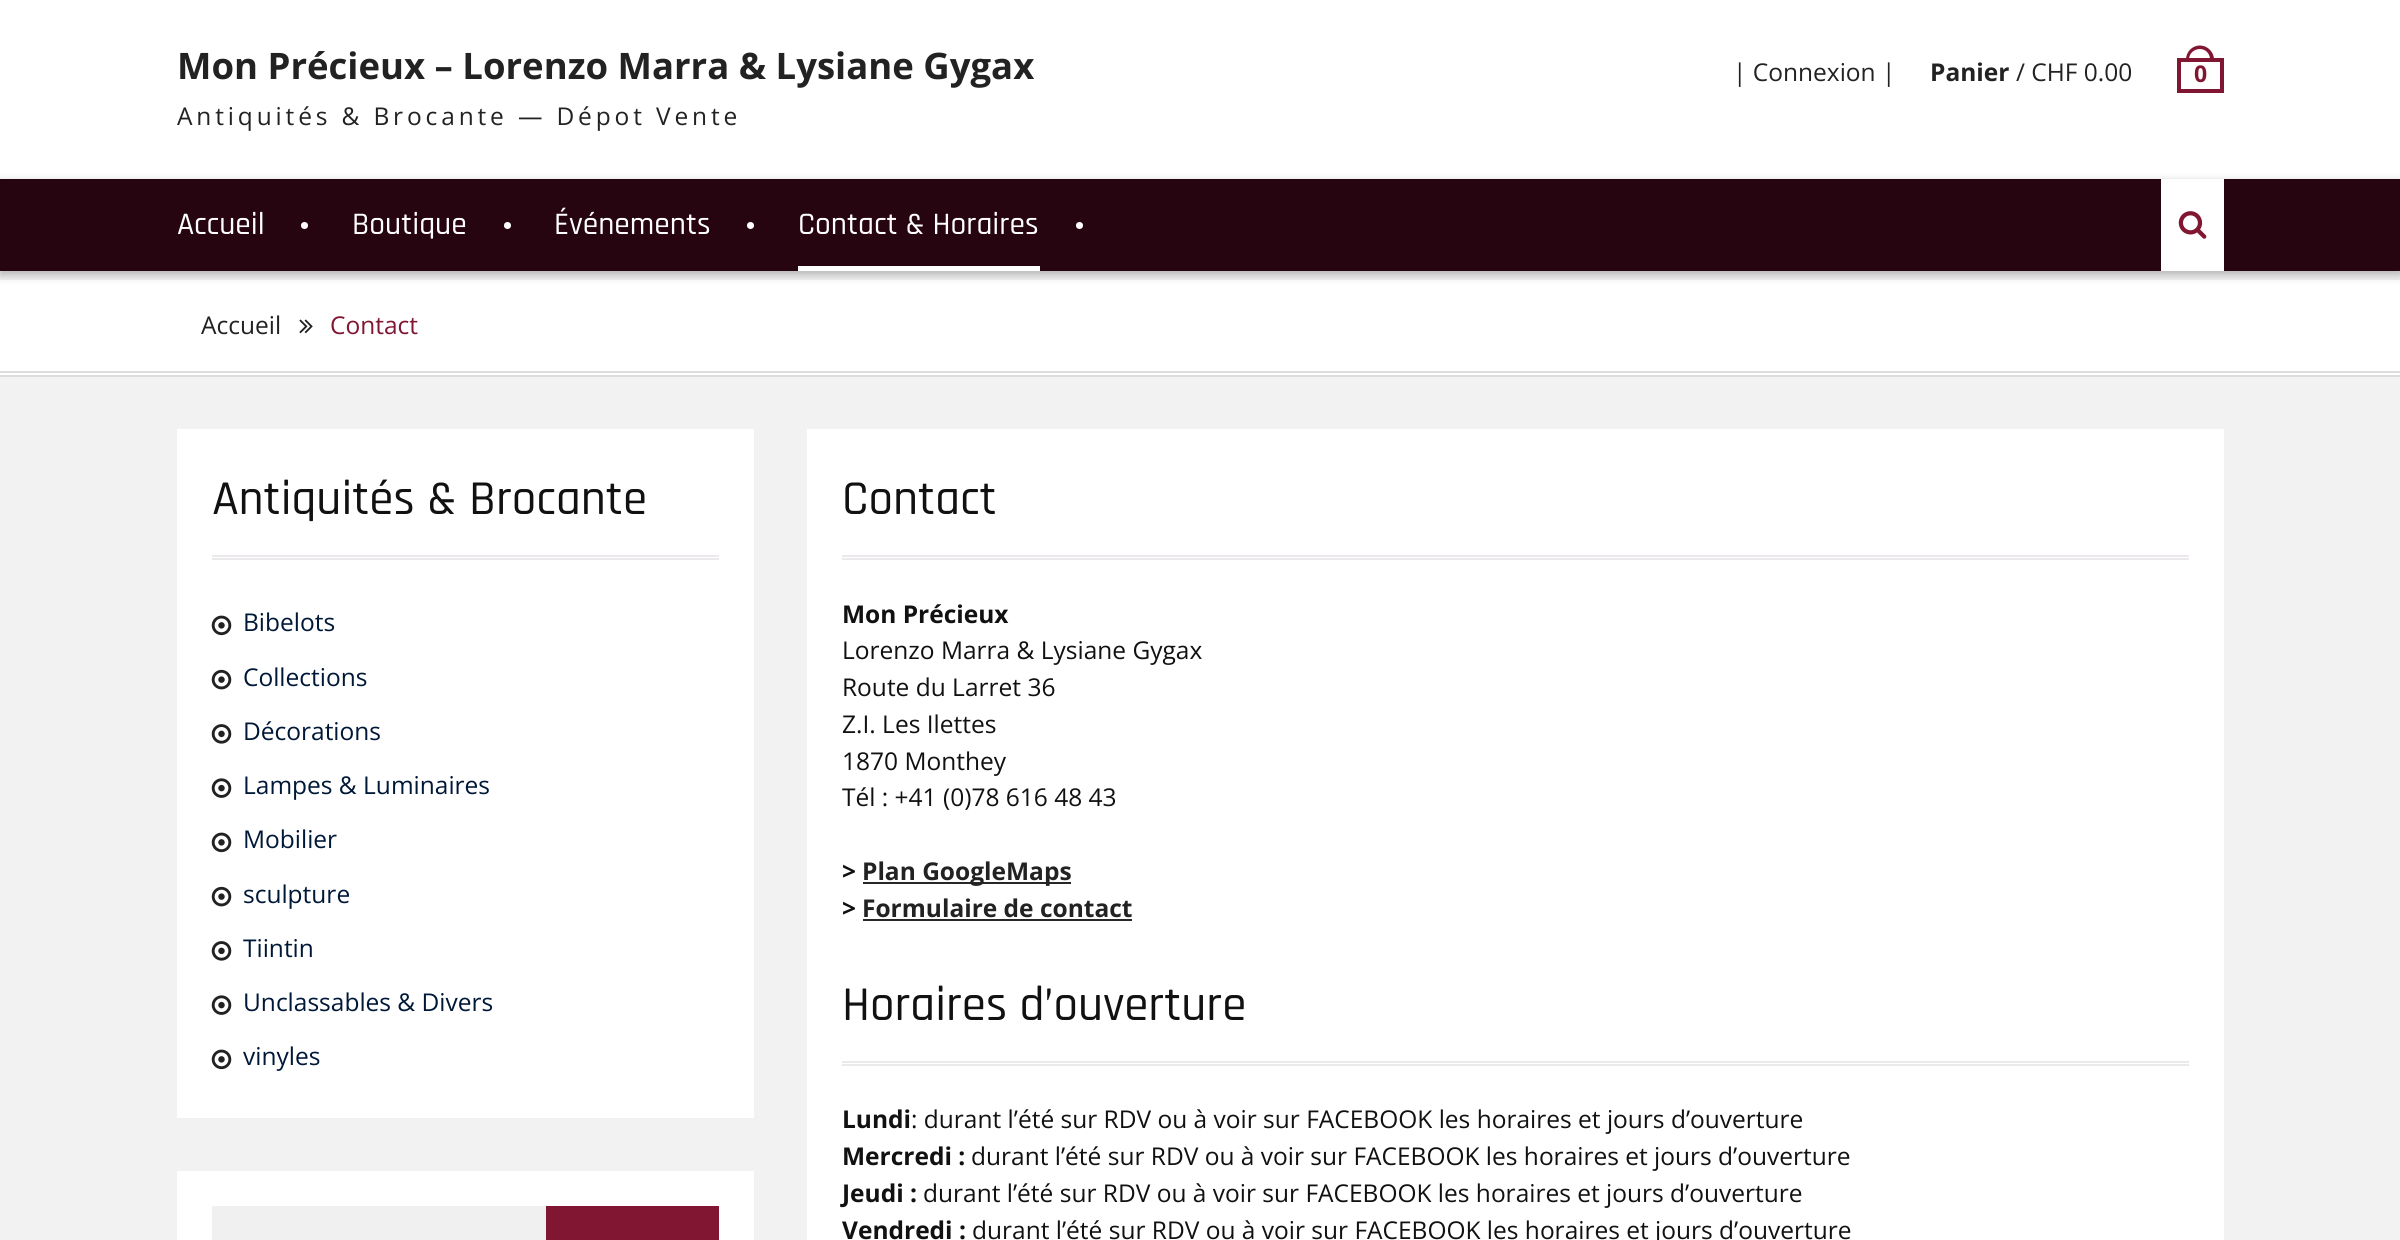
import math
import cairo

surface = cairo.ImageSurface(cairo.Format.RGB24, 2400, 1240)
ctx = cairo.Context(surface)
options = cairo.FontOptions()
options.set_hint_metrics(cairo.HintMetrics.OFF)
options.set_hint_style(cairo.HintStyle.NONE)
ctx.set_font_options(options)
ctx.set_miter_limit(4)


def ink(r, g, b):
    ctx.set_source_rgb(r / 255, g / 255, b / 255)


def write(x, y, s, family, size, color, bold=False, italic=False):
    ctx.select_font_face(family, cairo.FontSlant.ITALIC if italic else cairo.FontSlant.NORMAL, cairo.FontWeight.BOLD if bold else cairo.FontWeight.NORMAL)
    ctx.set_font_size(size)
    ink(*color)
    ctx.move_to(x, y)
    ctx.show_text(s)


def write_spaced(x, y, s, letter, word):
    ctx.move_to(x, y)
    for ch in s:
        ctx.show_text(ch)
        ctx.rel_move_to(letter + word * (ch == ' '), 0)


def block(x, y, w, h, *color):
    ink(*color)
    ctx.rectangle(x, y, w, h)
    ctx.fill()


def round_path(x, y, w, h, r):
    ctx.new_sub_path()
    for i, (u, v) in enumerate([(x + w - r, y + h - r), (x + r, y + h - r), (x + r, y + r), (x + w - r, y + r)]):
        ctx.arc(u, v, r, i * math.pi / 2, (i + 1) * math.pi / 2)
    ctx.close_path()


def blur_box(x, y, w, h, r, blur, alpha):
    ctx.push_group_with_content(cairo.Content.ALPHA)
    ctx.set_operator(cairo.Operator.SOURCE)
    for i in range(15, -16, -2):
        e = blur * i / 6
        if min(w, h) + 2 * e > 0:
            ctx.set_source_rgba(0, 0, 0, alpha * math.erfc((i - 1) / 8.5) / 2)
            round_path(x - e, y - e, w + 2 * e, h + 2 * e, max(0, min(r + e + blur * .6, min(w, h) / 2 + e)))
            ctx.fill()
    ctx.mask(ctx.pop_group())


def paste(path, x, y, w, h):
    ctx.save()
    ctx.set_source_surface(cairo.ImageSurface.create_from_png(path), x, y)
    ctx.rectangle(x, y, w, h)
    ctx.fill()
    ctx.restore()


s1 = dict(family="Open Sans", size=36.5, color=(34, 34, 34), bold=True)
s2 = dict(family="Open Sans", size=24.5, color=(34, 34, 34))
s3 = dict(family="Open Sans", size=24.5, color=(34, 34, 34), bold=True)
s4 = dict(family="Open Sans", size=23, color=(128, 22, 49), bold=True)
s5 = dict(family="Rajdhani Medium", size=31.5, color=(255, 255, 255))
s6 = dict(family="Open Sans", size=24.5, color=(128, 22, 49))
s7 = dict(family="Rajdhani Medium", size=49, color=(17, 17, 17))
s8 = dict(family="Open Sans", size=24.5, color=(0, 24, 55))
s9 = dict(family="Open Sans", size=24.5, color=(17, 17, 17), bold=True)
s10 = dict(family="Open Sans", size=24.5, color=(17, 17, 17))

ink(242, 242, 242)
ctx.paint()
block(0, 0, 2400, 179, 255, 255, 255)
write(177, 79, "Mon Précieux – Lorenzo Marra & Lysiane Gygax", **s1)
ctx.select_font_face("Open Sans")
ctx.set_font_size(24.5)
write_spaced(177, 125, "Antiquités & Brocante — Dépot Vente", 3.85, 0)
write(1733, 81, "| Connexion |", **s2)
write(1930, 81, "Panier", **s3)
write(2016, 81, "/ CHF 0.00", **s2)
ink(128, 22, 49)
ctx.set_fill_rule(cairo.FillRule.EVEN_ODD)
ctx.new_path()
ctx.move_to(2200, 45.5)
ctx.curve_to(2207.5, 45.5, 2214, 52, 2214, 59.5)
ctx.line_to(2186, 59.5)
ctx.curve_to(2186, 52, 2192, 45.5, 2200, 45.5)
ctx.close_path()
ctx.move_to(2200, 49)
ctx.curve_to(2205.5, 49, 2210, 53.5, 2210, 59.5)
ctx.line_to(2189, 59.5)
ctx.curve_to(2189, 53.5, 2194, 49, 2200, 49)
ctx.close_path()
ctx.fill()
ctx.rectangle(2179, 60, 43, 31)
ctx.set_line_width(4)
ctx.stroke()
write(2194, 82, "0", **s4)
block(0, 280, 2400, 95, 255, 255, 255)
ink(0, 0, 0)
blur_box(0, 182, 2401, 93, 0, 4.5, 0.26)
block(0, 179, 2400, 92, 39, 5, 16)
write(177, 234, "Accueil", **s5)
ctx.new_path()
ctx.arc(304.5, 225.5, 3.5, 0, 2 * math.pi)
ctx.fill()
write(352, 234, "Boutique", **s5)
ctx.new_path()
ctx.arc(507.5, 225.5, 3.5, 0, 2 * math.pi)
ctx.fill()
write(554, 234, "Événements", **s5)
ctx.new_path()
ctx.arc(750.5, 225.5, 3.5, 0, 2 * math.pi)
ctx.fill()
write(798, 234, "Contact & Horaires", **s5)
ctx.new_path()
ctx.arc(1079.5, 225.5, 3.5, 0, 2 * math.pi)
ctx.fill()
block(798, 266, 242, 5, 255, 255, 255)
block(2161, 179, 63, 92, 255, 255, 255)
paste("pic1.png", 2178, 211, 29, 28)
block(0, 371, 2400, 2, 221, 221, 221)
block(0, 375, 2400, 2, 221, 221, 221)
write(201, 334, "Accueil", **s2)
paste("pic2.png", 299, 319, 14, 15)
write(330, 334, "Contact", **s6)
block(177, 429, 577, 689, 255, 255, 255)
block(212, 555, 507, 2, 235, 233, 235)
block(212, 558, 507, 2, 235, 233, 235)
write(212, 514, "Antiquités & Brocante", **s7)
paste("pic3.png", 211, 615, 21, 21)
write(243, 631, "Bibelots", **s8)
paste("pic4.png", 211, 669, 21, 21)
write(243, 686, "Collections", **s8)
paste("pic5.png", 211, 724, 21, 20)
write(243, 740, "Décorations", **s8)
paste("pic6.png", 211, 778, 21, 20)
write(243, 794, "Lampes & Luminaires", **s8)
paste("pic3.png", 211, 832, 21, 21)
write(243, 848, "Mobilier", **s8)
paste("pic4.png", 211, 886, 21, 21)
write(243, 903, "sculpture", **s8)
paste("pic5.png", 211, 941, 21, 20)
write(243, 957, "Tiintin", **s8)
paste("pic6.png", 211, 995, 21, 20)
write(243, 1011, "Unclassables & Divers", **s8)
paste("pic3.png", 211, 1049, 21, 21)
write(243, 1065, "vinyles", **s8)
block(177, 1171, 577, 69, 255, 255, 255)
block(212, 1206, 334, 34, 240, 240, 240)
block(546, 1206, 173, 34, 128, 22, 49)
block(807, 429, 1417, 811, 255, 255, 255)
block(842, 555, 1347, 2, 235, 233, 235)
block(842, 558, 1347, 2, 235, 233, 235)
write(842, 514, "Contact", **s7)
write(842, 623, "Mon Précieux", **s9)
write(842, 659, "Lorenzo Marra & Lysiane Gygax", **s10)
write(842, 696, "Route du Larret 36", **s10)
write(842, 733, "Z.I. Les Ilettes", **s10)
write(842, 770, "1870 Monthey", **s10)
write(842, 806, "Tél : +41 (0)78 616 48 43", **s10)
write(842, 880, ">", **s9)
block(863, 882, 208, 2, 39, 39, 39)
write(862, 880, "Plan GoogleMaps", **s3)
write(842, 917, ">", **s9)
write(862, 917, "Formulaire de contact", **s3)
block(863, 919, 269, 2, 39, 39, 39)
block(842, 1061, 1347, 2, 235, 233, 235)
block(842, 1064, 1347, 2, 235, 233, 235)
write(842, 1020, "Horaires d’ouverture", **s7)
write(842, 1128, "Lundi", **s9)
write(911, 1128, ": durant l’été sur RDV ou à voir sur FACEBOOK les horaires et jours d’ouverture", **s10)
write(842, 1165, "Mercredi :", **s9)
write(971, 1165, "durant l’été sur RDV ou à voir sur FACEBOOK les horaires et jours d’ouverture", **s10)
write(842, 1202, "Jeudi :", **s9)
write(923, 1202, "durant l’été sur RDV ou à voir sur FACEBOOK les horaires et jours d’ouverture", **s10)
write(842, 1239, "Vendredi :", **s9)
write(972, 1239, "durant l’été sur RDV ou à voir sur FACEBOOK les horaires et jours d’ouverture", **s10)
surface.write_to_png("screenshot.png")
